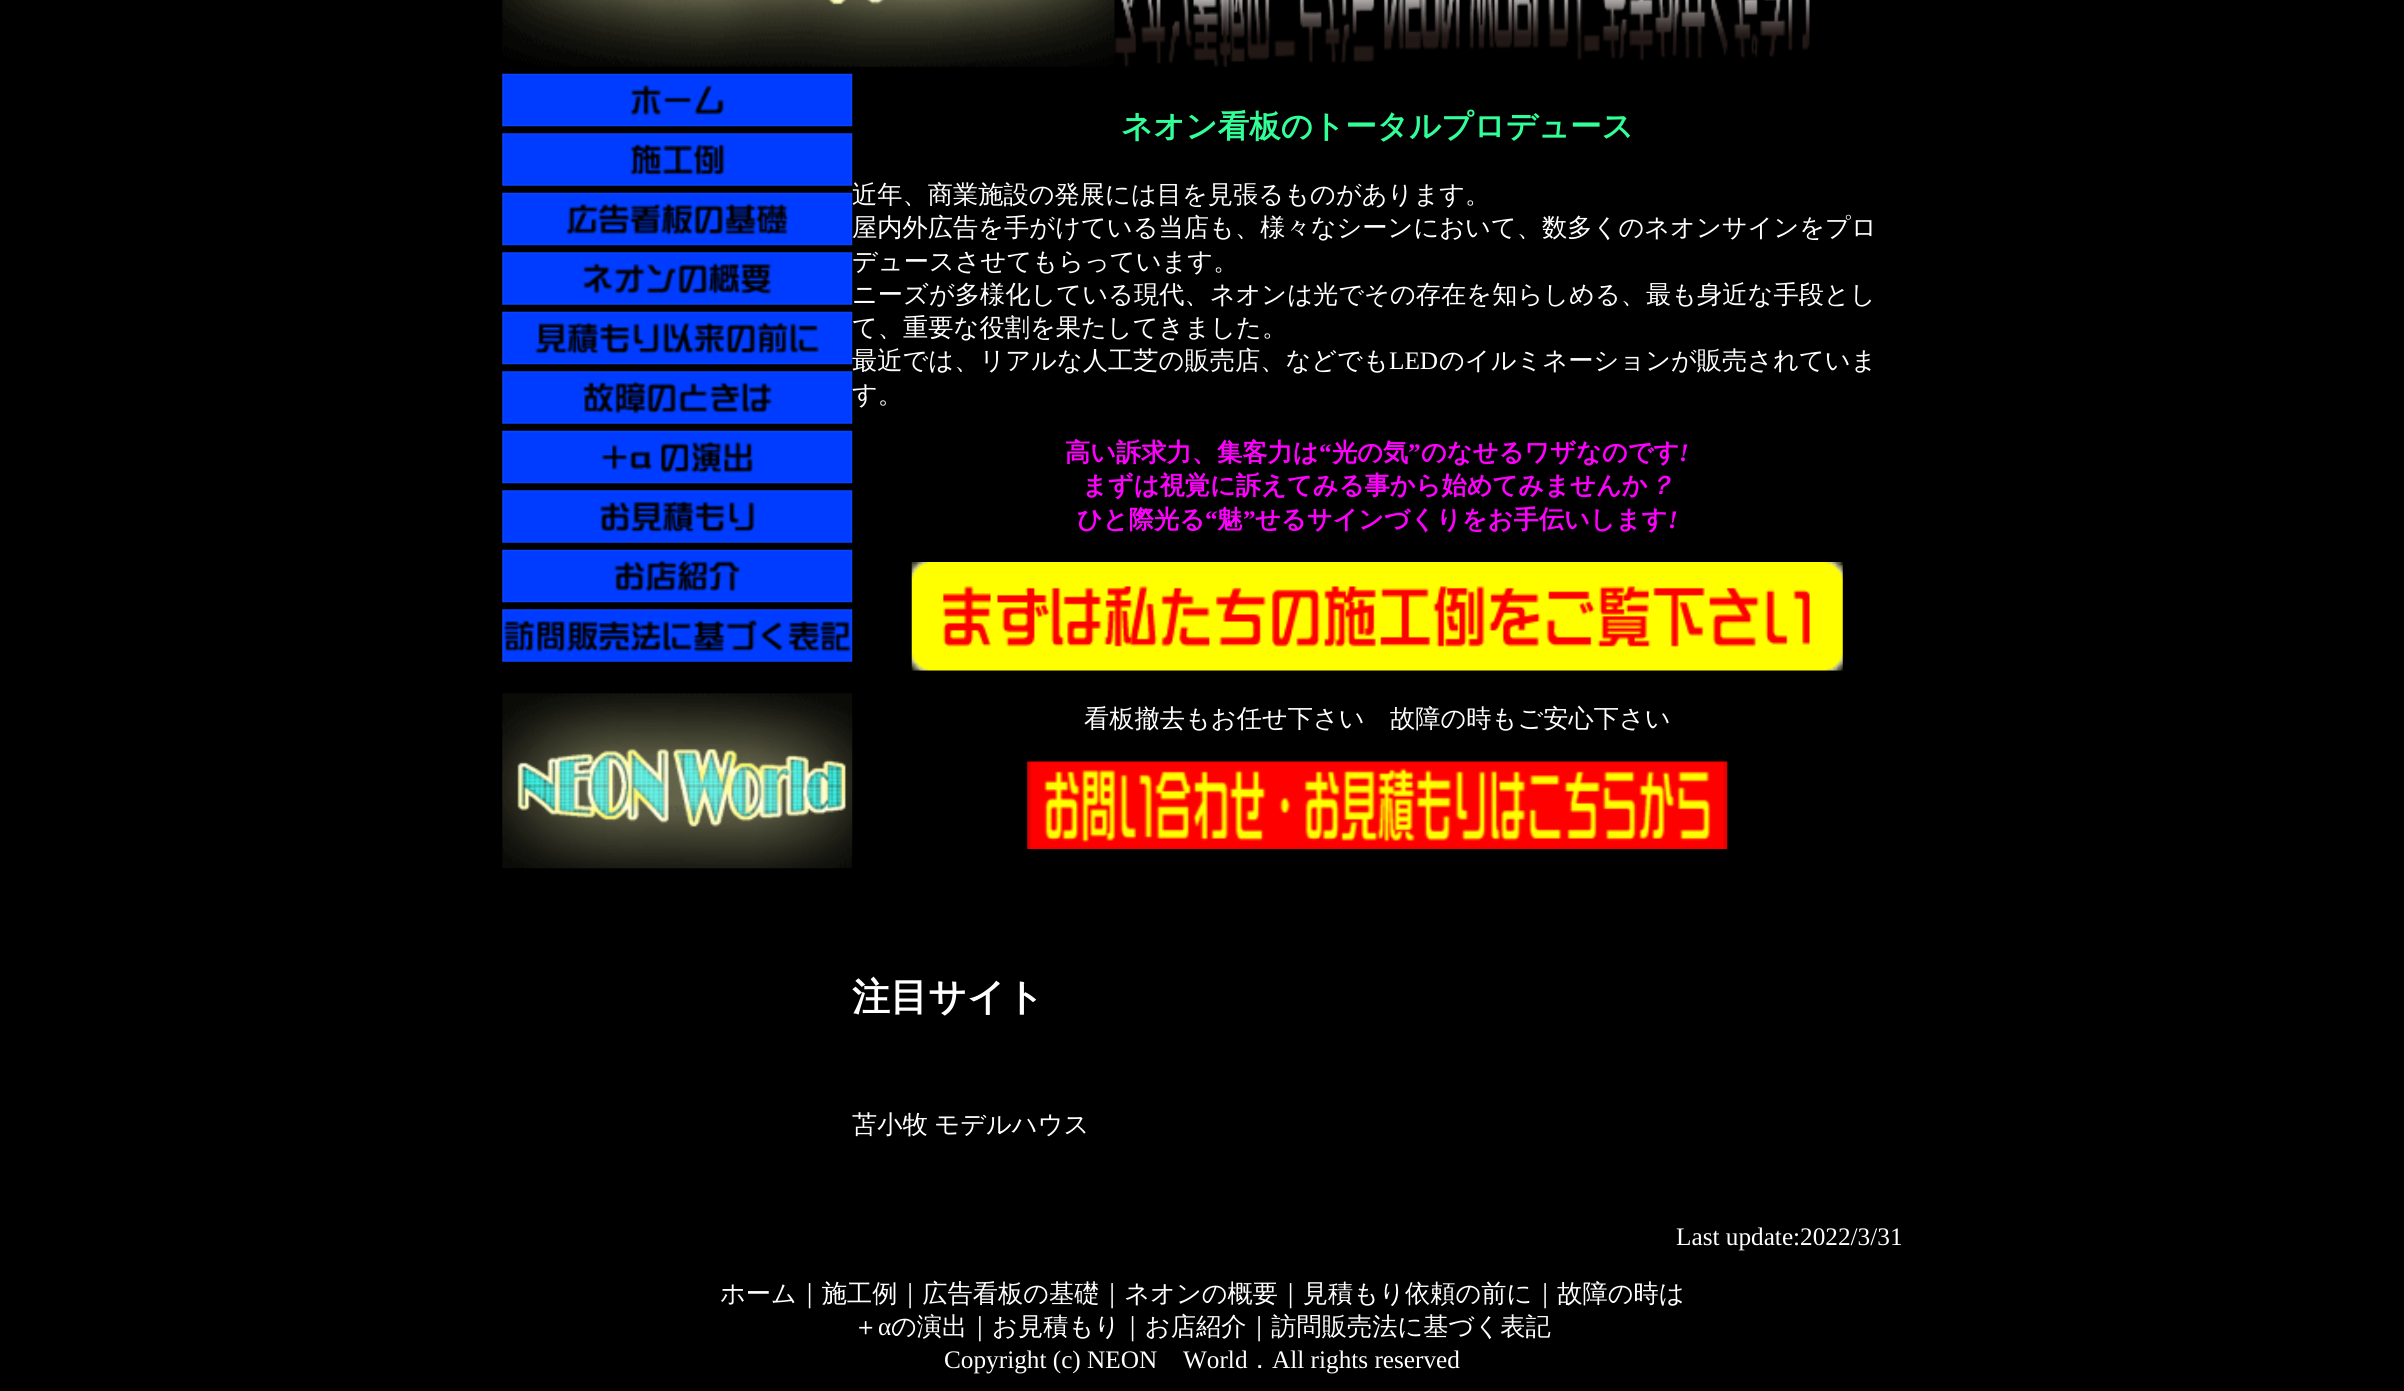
import math
import cairo

surface = cairo.ImageSurface(cairo.Format.RGB24, 2404, 1391)
ctx = cairo.Context(surface)
options = cairo.FontOptions()
options.set_hint_metrics(cairo.HintMetrics.OFF)
options.set_hint_style(cairo.HintStyle.NONE)
ctx.set_font_options(options)
ctx.set_miter_limit(4)


def ink(r, g, b):
    ctx.set_source_rgb(r / 255, g / 255, b / 255)


def write(x, y, s, family, size, color, bold=False, italic=False):
    ctx.select_font_face(family, cairo.FontSlant.ITALIC if italic else cairo.FontSlant.NORMAL, cairo.FontWeight.BOLD if bold else cairo.FontWeight.NORMAL)
    ctx.set_font_size(size)
    ink(*color)
    ctx.move_to(x, y)
    ctx.show_text(s)


def write_spaced(x, y, s, letter, word):
    ctx.move_to(x, y)
    for ch in s:
        ctx.show_text(ch)
        ctx.rel_move_to(letter + word * (ch == ' '), 0)


def paste(path, x, y, w, h):
    ctx.save()
    ctx.set_source_surface(cairo.ImageSurface.create_from_png(path), x, y)
    ctx.rectangle(x, y, w, h)
    ctx.fill()
    ctx.restore()


s1 = dict(family="WenQuanYi Zen Hei", size=31.5, color=(51, 255, 153), bold=True)
s2 = dict(family="WenQuanYi Zen Hei Medium", size=25.25, color=(255, 255, 255))
s3 = dict(family="Liberation Serif", size=25.25, color=(255, 255, 255))
s4 = dict(family="WenQuanYi Zen Hei", size=25.25, color=(255, 0, 255), bold=True)
s5 = dict(family="Liberation Serif", size=25.25, color=(255, 0, 255), bold=True)
s6 = dict(family="Liberation Serif", size=25.25, color=(255, 0, 255), bold=True, italic=True)
s7 = dict(family="WenQuanYi Zen Hei", size=25.25, color=(255, 0, 255), bold=True, italic=True)
s8 = dict(family="WenQuanYi Zen Hei", size=38, color=(255, 255, 255), bold=True)

ink(0, 0, 0)
ctx.paint()
paste("pic1.png", 502, 0, 613, 67)
paste("pic2.png", 1114, 0, 696, 67)
paste("pic3.png", 502, 73, 351, 54)
paste("pic4.png", 502, 133, 351, 53)
paste("pic5.png", 502, 192, 351, 54)
paste("pic6.png", 502, 252, 351, 53)
paste("pic7.png", 502, 311, 351, 54)
paste("pic8.png", 502, 371, 351, 53)
paste("pic9.png", 502, 430, 351, 54)
paste("pic10.png", 502, 490, 351, 53)
paste("pic11.png", 502, 549, 351, 54)
paste("pic12.png", 502, 609, 351, 53)
paste("pic13.png", 502, 693, 351, 176)
write(1121, 137, "ネオン看板のトータルプロデュース", **s1)
write(852, 203, "近年、商業施設の発展には目を見張るものがあります。", **s2)
write(852, 236, "屋内外広告を手がけている当店も、様々なシーンにおいて、数多くのネオンサインをプロ", **s2)
write(852, 270, "デュースさせてもらっています。", **s2)
write(852, 303, "ニーズが多様化している現代、ネオンは光でその存在を知らしめる、最も身近な手段とし", **s2)
write(852, 336, "て、重要な役割を果たしてきました。", **s2)
write(852, 369, "最近では、リアルな人工芝の販売店、などでも", **s2)
write(1389, 369, "LED", **s3)
write(1439, 369, "のイルミネーションが販売されていま", **s2)
write(852, 403, "す。", **s2)
write(1065, 461, "高い訴求力、集客力は", **s4)
write(1319, 461, "“", **s5)
write(1332, 461, "光の気", **s4)
write(1408, 461, "”", **s5)
write(1421, 461, "のなせるワザなのです", **s4)
write(1679, 461, "!", **s6)
write(1082, 494, "まずは視覚に訴えてみる事から始めてみませんか", **s4)
write(1648, 494, "？", **s7)
write(1077, 528, "ひと際光る", **s4)
write(1205, 528, "“", **s5)
write(1217, 528, "魅", **s4)
write(1243, 528, "”", **s5)
write(1255, 528, "せるサインづくりをお手伝いします", **s4)
write(1668, 528, "!", **s6)
paste("pic14.png", 911, 562, 932, 109)
write(1084, 727, "看板撤去もお任せ下さい", **s2)
write(1390, 727, "故障の時もご安心下さい", **s2)
paste("pic15.png", 1027, 761, 701, 88)
write(852, 1010, "注目サイト", **s8)
ctx.select_font_face("WenQuanYi Zen Hei Medium")
ctx.set_font_size(25.25)
write_spaced(852, 1133, "苫小牧 モデルハウス", 0, -1)
write(1676, 1245, "Last update:2022/3/31", **s3)
write(720, 1302, "ホーム｜施工例｜広告看板の基礎｜ネオンの概要｜見積もり依頼の前に｜故障の時は", **s2)
write(853, 1335, "＋", **s2)
write(878, 1335, "α", **s3)
write(891, 1335, "の演出｜お見積もり｜お店紹介｜訪問販売法に基づく表記", **s2)
write(944, 1368, "Copyright (c) NEON", **s3)
write(1183, 1368, "World", **s3)
write(1247, 1368, "．", **s2)
write(1272, 1368, "All rights reserved", **s3)
surface.write_to_png("screenshot.png")
